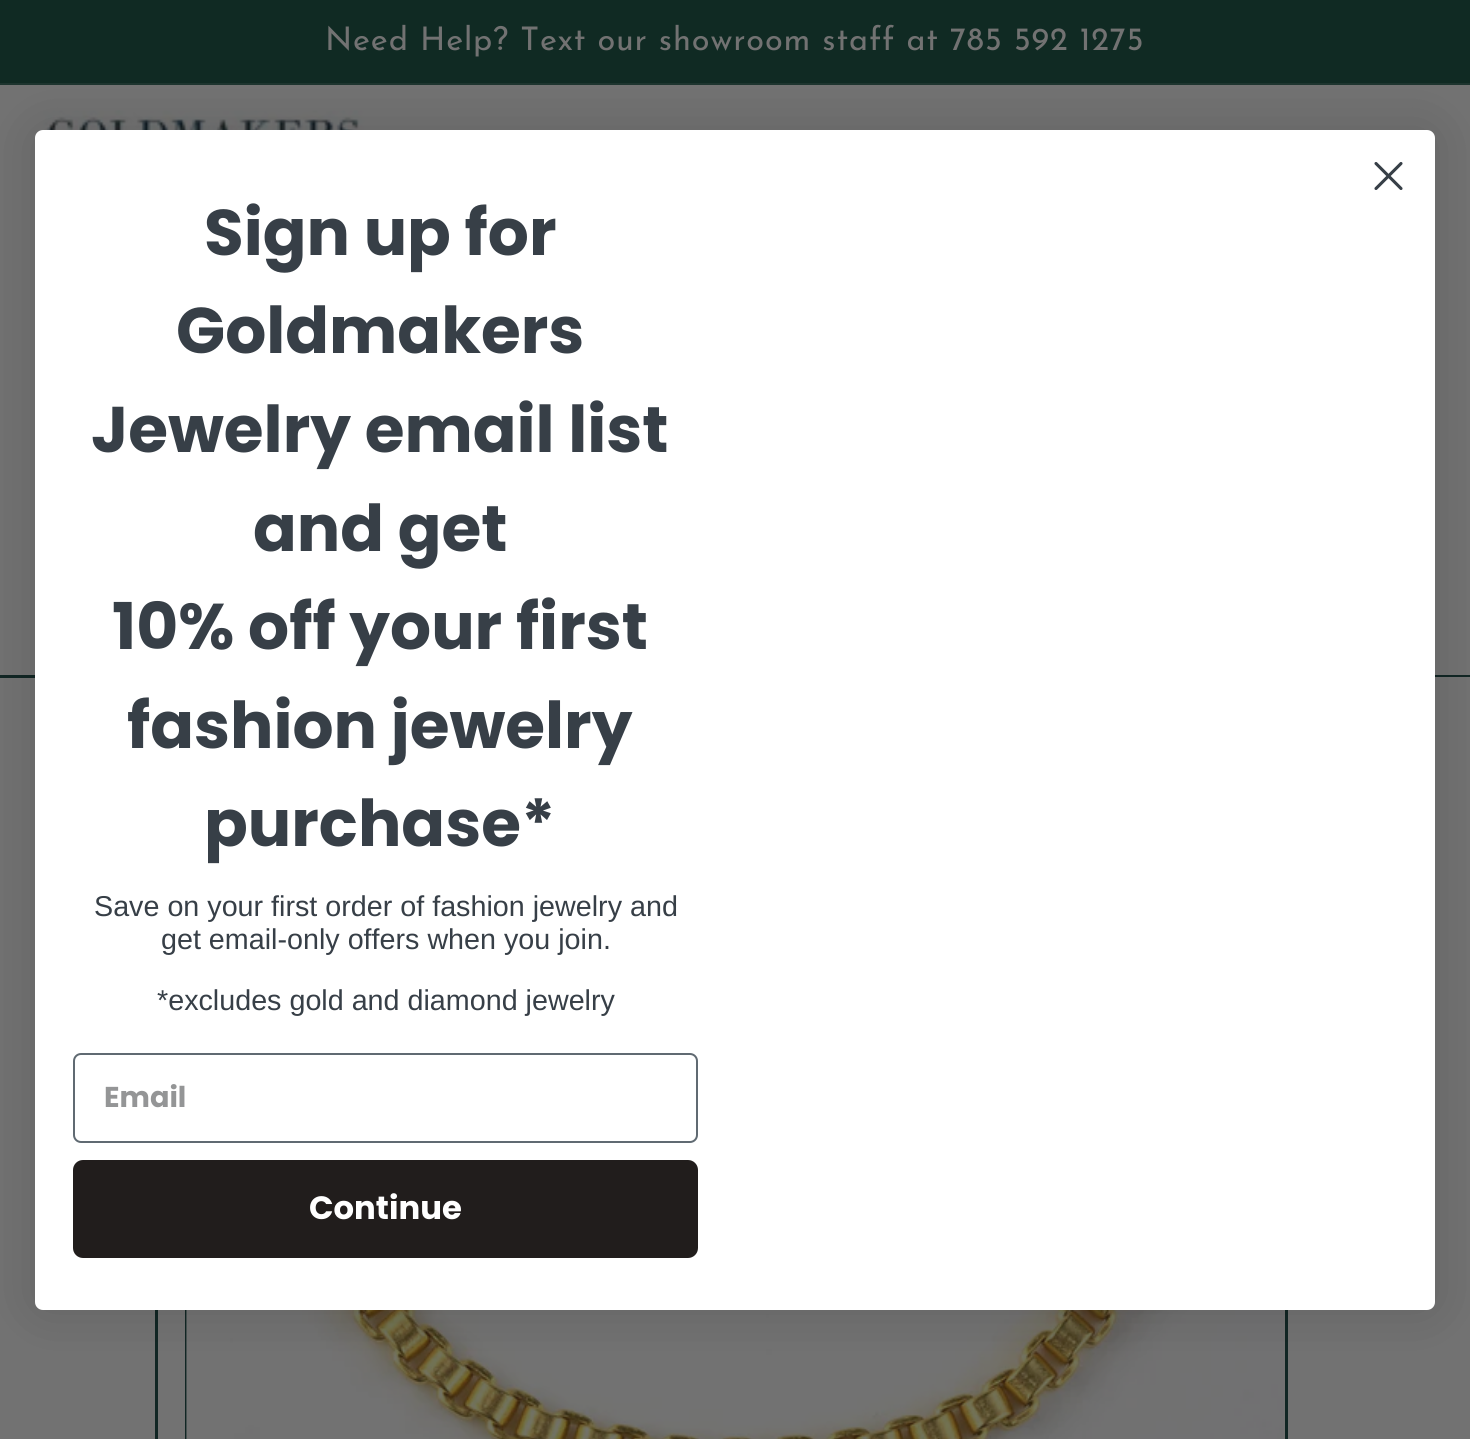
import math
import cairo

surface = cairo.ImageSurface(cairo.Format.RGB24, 1470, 1439)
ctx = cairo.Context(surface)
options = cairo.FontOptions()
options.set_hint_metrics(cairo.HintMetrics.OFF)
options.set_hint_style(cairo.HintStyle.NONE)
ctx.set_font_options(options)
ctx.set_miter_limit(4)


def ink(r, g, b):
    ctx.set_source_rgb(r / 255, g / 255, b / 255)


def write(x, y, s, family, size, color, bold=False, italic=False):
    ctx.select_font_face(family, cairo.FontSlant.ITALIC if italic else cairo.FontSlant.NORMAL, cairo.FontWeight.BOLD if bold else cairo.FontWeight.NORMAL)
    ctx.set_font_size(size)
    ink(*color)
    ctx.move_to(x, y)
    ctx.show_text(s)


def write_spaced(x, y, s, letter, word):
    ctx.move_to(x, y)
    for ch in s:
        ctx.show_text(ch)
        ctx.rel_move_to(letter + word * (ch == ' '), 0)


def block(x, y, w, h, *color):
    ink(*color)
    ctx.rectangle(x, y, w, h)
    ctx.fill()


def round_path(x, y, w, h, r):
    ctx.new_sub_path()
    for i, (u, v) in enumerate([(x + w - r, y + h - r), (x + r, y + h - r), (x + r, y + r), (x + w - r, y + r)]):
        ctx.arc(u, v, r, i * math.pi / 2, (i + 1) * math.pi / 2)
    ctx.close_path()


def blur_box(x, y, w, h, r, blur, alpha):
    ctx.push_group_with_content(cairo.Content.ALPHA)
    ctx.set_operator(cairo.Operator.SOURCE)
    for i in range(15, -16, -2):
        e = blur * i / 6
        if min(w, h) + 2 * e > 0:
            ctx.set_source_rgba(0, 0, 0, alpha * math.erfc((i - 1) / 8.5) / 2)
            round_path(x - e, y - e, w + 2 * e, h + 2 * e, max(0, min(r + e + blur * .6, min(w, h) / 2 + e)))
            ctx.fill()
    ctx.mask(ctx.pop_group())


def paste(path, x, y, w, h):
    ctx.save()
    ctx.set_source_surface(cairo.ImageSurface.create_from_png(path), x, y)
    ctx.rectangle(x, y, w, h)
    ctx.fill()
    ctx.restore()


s1 = dict(family="Poppins", size=64.5, color=(55, 63, 71), bold=True)
s2 = dict(family="Liberation Sans", size=28.7, color=(55, 63, 71))
s3 = dict(family="Poppins", size=28.7, color=(148, 149, 150), bold=True)
s4 = dict(family="Poppins", size=32.25, color=(255, 255, 255), bold=True)

ink(114, 114, 114)
ctx.paint()
block(0, 0, 1470, 83, 16, 42, 35)
block(0, 83, 1470, 2, 30, 53, 47)
ctx.select_font_face("Josefin Sans")
ctx.set_font_size(32.5)
ink(114, 114, 114)
write_spaced(325, 50, "Need Help? Text our showroom staff at 785 592 1275", 0.88, 0)
paste("pic1.png", 43, 110, 350, 20)
ctx.rectangle(-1.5, 676.5, 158, 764)
ink(17, 38, 36)
ctx.set_line_width(3)
ctx.stroke()
ctx.rectangle(186.5, 676.5, 1100, 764)
ctx.stroke()
paste("pic2.png", 186, 1310, 1098, 129)
ctx.rectangle(1314.5, 676.5, 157, 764)
ctx.stroke()
block(1313, 677, 157, 762, 114, 114, 114)
ink(0, 0, 0)
blur_box(35, 130, 1400, 1180, 8, 27, 0.15)
ink(255, 255, 255)
round_path(35, 130, 1400, 1180, 8)
ctx.fill()
ctx.new_path()
ctx.move_to(1376, 163.5)
ctx.line_to(1401, 188.5)
ctx.move_to(1376, 188.5)
ctx.line_to(1401, 163.5)
ctx.close_path()
ink(55, 63, 71)
ctx.set_line_width(3.1)
ctx.set_line_cap(cairo.LineCap.ROUND)
ctx.set_line_join(cairo.LineJoin.ROUND)
ctx.stroke()
write(204, 255, "Sign up for", **s1)
write(176, 353, "Goldmakers", **s1)
write(91, 452, "Jewelry email list", **s1)
write(253, 551, "and get", **s1)
write(112, 649, "10% off your first", **s1)
write(127, 748, "fashion jewelry", **s1)
write(204, 846, "purchase*", **s1)
write(94, 916, "Save on your first order of fashion jewelry and", **s2)
write(161, 949, "get email-only offers when you join.", **s2)
write(157, 1010, "*excludes gold and diamond jewelry", **s2)
round_path(74, 1054, 623, 88, 7)
ink(96, 106, 114)
ctx.set_line_width(2)
ctx.set_line_cap(cairo.LineCap.BUTT)
ctx.set_line_join(cairo.LineJoin.MITER)
ctx.stroke()
write(104, 1107, "Email", **s3)
ink(33, 29, 28)
round_path(73, 1160, 625, 98, 10)
ctx.fill()
write(309, 1219, "Continue", **s4)
surface.write_to_png("screenshot.png")
